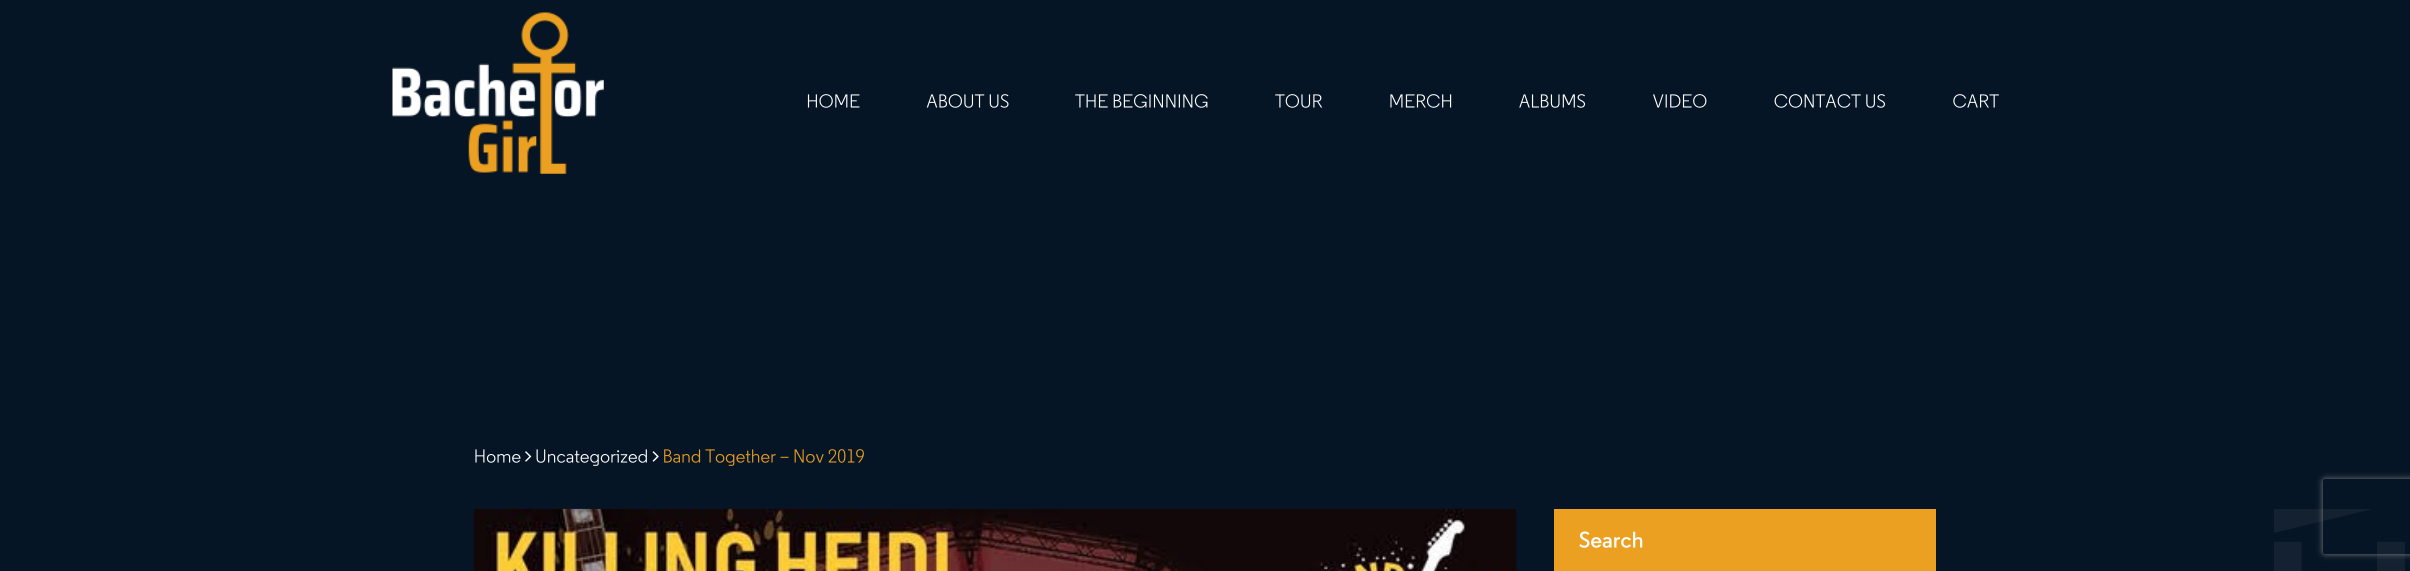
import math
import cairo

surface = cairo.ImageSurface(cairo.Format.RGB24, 2410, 571)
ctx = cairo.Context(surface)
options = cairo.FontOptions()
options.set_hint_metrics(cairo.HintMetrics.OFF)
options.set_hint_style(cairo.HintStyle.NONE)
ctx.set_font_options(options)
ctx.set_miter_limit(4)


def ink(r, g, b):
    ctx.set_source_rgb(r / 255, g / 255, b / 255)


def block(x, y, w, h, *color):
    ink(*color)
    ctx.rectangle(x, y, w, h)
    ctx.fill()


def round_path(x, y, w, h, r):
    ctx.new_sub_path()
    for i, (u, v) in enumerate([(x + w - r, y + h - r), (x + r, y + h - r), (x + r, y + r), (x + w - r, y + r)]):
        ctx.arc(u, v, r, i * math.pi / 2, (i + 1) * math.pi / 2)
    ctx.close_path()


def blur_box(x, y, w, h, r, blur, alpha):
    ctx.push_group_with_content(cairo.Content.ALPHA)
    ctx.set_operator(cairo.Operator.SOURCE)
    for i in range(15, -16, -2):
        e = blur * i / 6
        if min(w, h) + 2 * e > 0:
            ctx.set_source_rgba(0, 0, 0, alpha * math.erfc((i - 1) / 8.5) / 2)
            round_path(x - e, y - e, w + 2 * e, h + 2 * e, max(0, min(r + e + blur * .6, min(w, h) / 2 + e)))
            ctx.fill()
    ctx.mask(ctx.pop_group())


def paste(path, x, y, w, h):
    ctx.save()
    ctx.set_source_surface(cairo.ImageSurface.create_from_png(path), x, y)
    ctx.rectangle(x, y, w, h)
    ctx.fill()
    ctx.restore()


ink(6, 21, 37)
ctx.paint()
paste("pic1.png", 392, 12, 212, 162)
paste("pic2.png", 807, 94, 53, 14)
paste("pic3.png", 926, 94, 83, 14)
paste("pic4.png", 1075, 94, 133, 14)
paste("pic5.png", 1275, 94, 48, 14)
paste("pic6.png", 1390, 94, 62, 14)
paste("pic7.png", 1519, 94, 67, 14)
paste("pic8.png", 1653, 94, 54, 14)
paste("pic9.png", 1774, 94, 111, 14)
paste("pic10.png", 1953, 94, 46, 14)
paste("pic11.png", 475, 449, 46, 14)
paste("pic12.png", 525, 451, 7, 11)
paste("pic13.png", 536, 449, 111, 17)
paste("pic14.png", 652, 451, 7, 11)
paste("pic15.png", 664, 449, 200, 17)
paste("pic18.png", 2274, 509, 131, 62)
ctx.save()
ctx.set_fill_rule(cairo.FillRule.EVEN_ODD)
ctx.new_path()
ctx.move_to(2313, 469)
ctx.line_to(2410, 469)
ctx.line_to(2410, 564)
ctx.line_to(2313, 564)
ctx.close_path()
ctx.move_to(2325.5, 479)
ctx.line_to(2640.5, 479)
ctx.curve_to(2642, 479, 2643, 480, 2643, 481.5)
ctx.line_to(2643, 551.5)
ctx.curve_to(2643, 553, 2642, 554, 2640.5, 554)
ctx.line_to(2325.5, 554)
ctx.curve_to(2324, 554, 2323, 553, 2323, 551.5)
ctx.line_to(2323, 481.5)
ctx.curve_to(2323, 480, 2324, 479, 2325.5, 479)
ctx.close_path()
ctx.clip()
ink(128, 128, 128)
blur_box(2323, 479, 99, 75, 2.5, 3, 1)
ctx.restore()
paste("pic16.png", 473, 508, 1044, 63)
block(1554, 509, 382, 62, 236, 160, 33)
paste("pic17.png", 1579, 531, 64, 17)
surface.write_to_png("screenshot.png")
